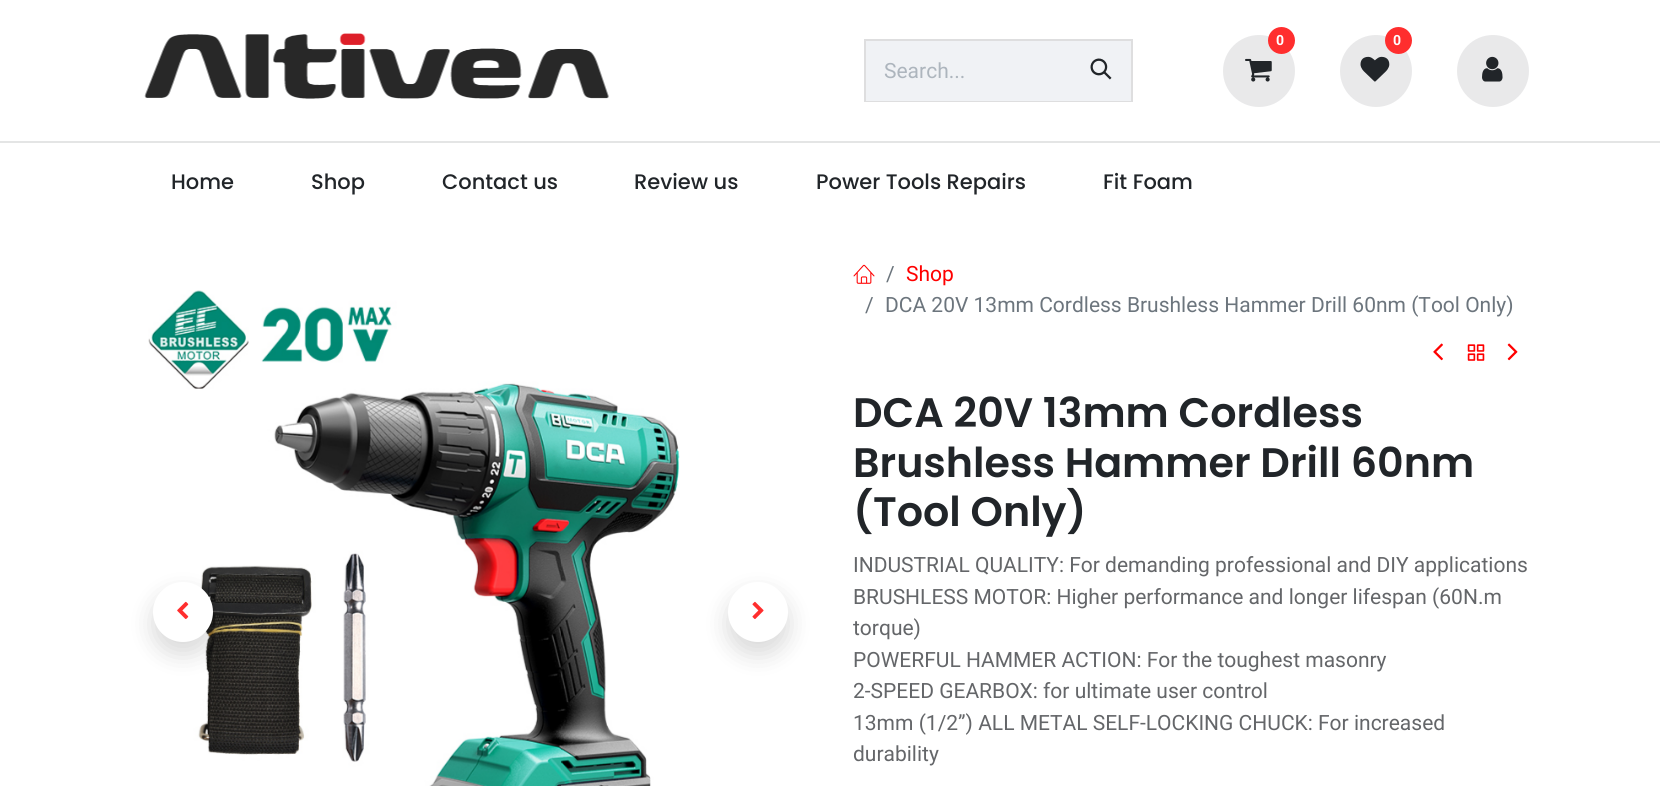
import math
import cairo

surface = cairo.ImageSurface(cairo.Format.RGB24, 1660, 786)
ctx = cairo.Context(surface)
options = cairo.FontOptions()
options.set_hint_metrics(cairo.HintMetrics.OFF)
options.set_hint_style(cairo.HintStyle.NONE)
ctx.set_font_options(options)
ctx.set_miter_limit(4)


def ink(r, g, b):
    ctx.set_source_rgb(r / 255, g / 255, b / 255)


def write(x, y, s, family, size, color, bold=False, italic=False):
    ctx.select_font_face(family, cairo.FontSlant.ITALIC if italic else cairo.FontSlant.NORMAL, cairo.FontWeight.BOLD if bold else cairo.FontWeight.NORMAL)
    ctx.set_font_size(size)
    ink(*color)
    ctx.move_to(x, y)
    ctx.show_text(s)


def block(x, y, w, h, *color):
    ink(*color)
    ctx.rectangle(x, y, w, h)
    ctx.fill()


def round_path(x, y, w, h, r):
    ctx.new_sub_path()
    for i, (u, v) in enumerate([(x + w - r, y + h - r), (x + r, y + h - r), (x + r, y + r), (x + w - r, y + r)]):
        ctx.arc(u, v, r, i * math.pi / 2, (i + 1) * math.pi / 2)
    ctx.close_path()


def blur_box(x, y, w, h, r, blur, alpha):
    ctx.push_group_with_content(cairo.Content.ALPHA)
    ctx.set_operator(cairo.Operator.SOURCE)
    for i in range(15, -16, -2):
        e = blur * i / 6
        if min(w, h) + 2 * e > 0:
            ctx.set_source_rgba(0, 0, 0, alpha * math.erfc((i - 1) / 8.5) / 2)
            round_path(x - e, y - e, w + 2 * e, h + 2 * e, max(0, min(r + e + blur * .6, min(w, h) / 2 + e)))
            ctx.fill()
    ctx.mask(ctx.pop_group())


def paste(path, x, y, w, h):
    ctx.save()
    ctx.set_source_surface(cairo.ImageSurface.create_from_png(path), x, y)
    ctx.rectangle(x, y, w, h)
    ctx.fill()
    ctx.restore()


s1 = dict(family="Roboto", size=14, color=(255, 255, 255), bold=True)
s2 = dict(family="Roboto", size=21, color=(173, 181, 189))
s3 = dict(family="Poppins Medium", size=21, color=(33, 37, 41))
s4 = dict(family="Roboto", size=21, color=(108, 117, 125))
s5 = dict(family="Roboto", size=21, color=(255, 0, 0))
s6 = dict(family="Poppins SemiBold", size=41.2, color=(33, 37, 41))
s7 = dict(family="Roboto", size=21, color=(100, 102, 105))

ink(255, 255, 255)
ctx.paint()
block(0, 141, 1660, 2, 228, 229, 229)
paste("pic1.png", 144, 33, 465, 66)
ink(233, 233, 234)
ctx.arc(1259, 71, 36, 0, 2 * math.pi)
ctx.fill()
paste("pic2.png", 1245, 58, 27, 24)
ink(255, 46, 46)
ctx.arc(1281.5, 40.5, 13.5, 0, 2 * math.pi)
ctx.fill()
write(1276, 45, "0", **s1)
ink(233, 233, 234)
ctx.new_path()
ctx.arc(1376, 71, 36, 0, 2 * math.pi)
ctx.fill()
paste("pic3.png", 1360, 56, 30, 26)
ink(255, 46, 46)
ctx.arc(1398.5, 40.5, 13.5, 0, 2 * math.pi)
ctx.fill()
write(1393, 45, "0", **s1)
ink(233, 233, 234)
ctx.new_path()
ctx.arc(1493, 71, 36, 0, 2 * math.pi)
ctx.fill()
paste("pic4.png", 1482, 56, 21, 26)
ctx.rectangle(865, 40, 267, 61)
ink(222, 222, 223)
ctx.stroke()
block(866, 41, 265, 60, 240, 242, 245)
write(884, 78, "Search...", **s2)
paste("pic5.png", 1090, 58, 22, 22)
write(171, 189, "Home", **s3)
write(311, 189, "Shop", **s3)
write(442, 189, "Contact us", **s3)
write(634, 189, "Review us", **s3)
write(816, 189, "Power Tools Repairs", **s3)
write(1103, 189, "Fit Foam", **s3)
paste("pic6.png", 148, 290, 532, 496)
ink(0, 0, 0)
blur_box(153, 594, 60, 60, 30, 12, 0.15)
ink(255, 255, 255)
ctx.arc(183, 612, 30, 0, 2 * math.pi)
ctx.fill()
paste("pic7.png", 177, 601, 12, 18)
ink(0, 0, 0)
blur_box(728, 594, 60, 60, 30, 12, 0.15)
ink(255, 255, 255)
ctx.arc(758, 612, 30, 0, 2 * math.pi)
ctx.fill()
paste("pic8.png", 752, 601, 12, 18)
paste("pic9.png", 853, 264, 22, 20)
write(886, 281, "/", **s4)
write(906, 281, "Shop", **s5)
write(865, 312, "/", **s4)
write(885, 312, "DCA 20V 13mm Cordless Brushless Hammer Drill 60nm (Tool Only)", **s4)
paste("pic10.png", 1433, 343, 10, 18)
paste("pic11.png", 1467, 344, 18, 17)
paste("pic12.png", 1507, 343, 11, 18)
write(853, 427, "DCA 20V 13mm Cordless", **s6)
write(853, 477, "Brushless Hammer Drill 60nm", **s6)
write(853, 526, "(Tool Only)", **s6)
write(853, 572, "INDUSTRIAL QUALITY: For demanding professional and DIY applications", **s7)
write(853, 604, "BRUSHLESS MOTOR: Higher performance and longer lifespan (60N.m", **s7)
write(853, 635, "torque)", **s7)
write(853, 667, "POWERFUL HAMMER ACTION: For the toughest masonry", **s7)
write(853, 698, "2-SPEED GEARBOX: for ultimate user control", **s7)
write(853, 730, "13mm (1/2”) ALL METAL SELF-LOCKING CHUCK: For increased", **s7)
write(853, 761, "durability", **s7)
surface.write_to_png("screenshot.png")
